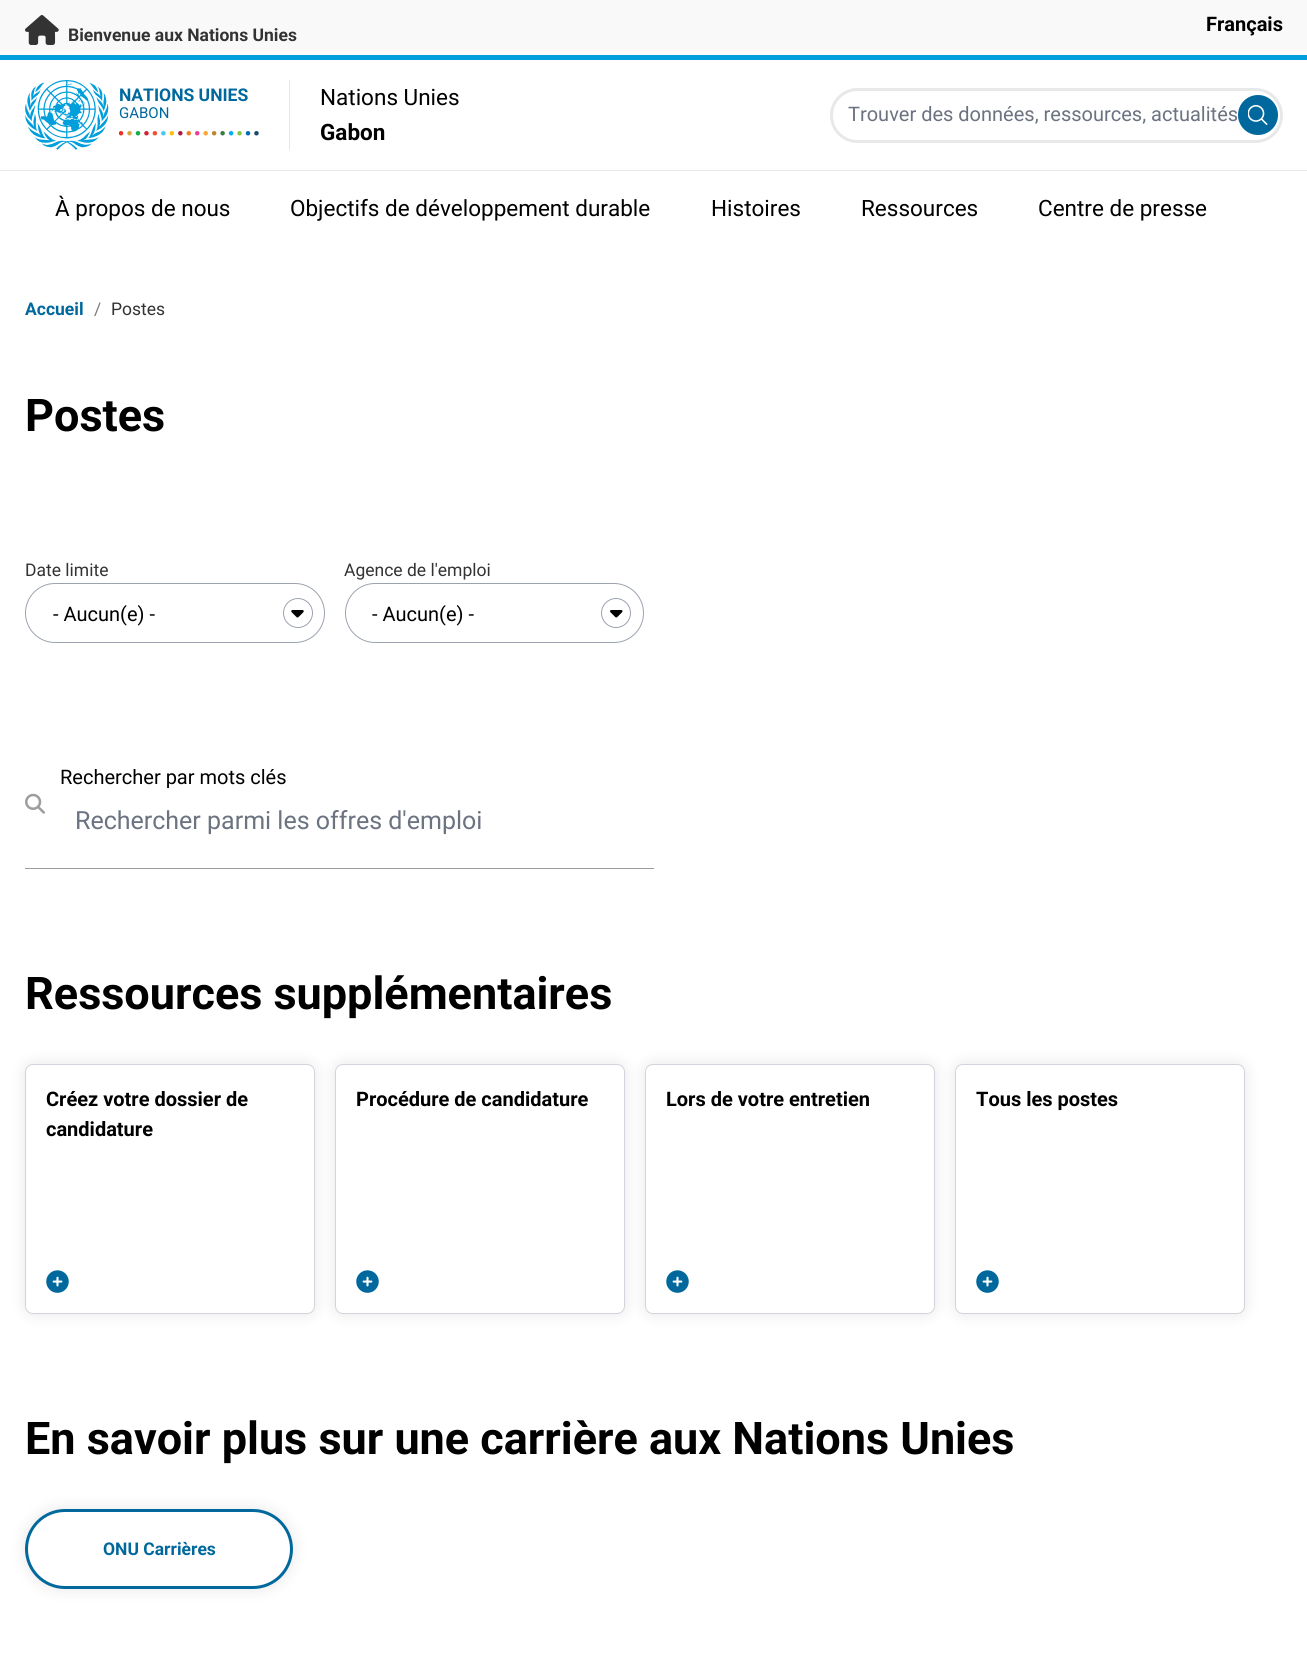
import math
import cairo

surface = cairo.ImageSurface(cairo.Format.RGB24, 1307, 1655)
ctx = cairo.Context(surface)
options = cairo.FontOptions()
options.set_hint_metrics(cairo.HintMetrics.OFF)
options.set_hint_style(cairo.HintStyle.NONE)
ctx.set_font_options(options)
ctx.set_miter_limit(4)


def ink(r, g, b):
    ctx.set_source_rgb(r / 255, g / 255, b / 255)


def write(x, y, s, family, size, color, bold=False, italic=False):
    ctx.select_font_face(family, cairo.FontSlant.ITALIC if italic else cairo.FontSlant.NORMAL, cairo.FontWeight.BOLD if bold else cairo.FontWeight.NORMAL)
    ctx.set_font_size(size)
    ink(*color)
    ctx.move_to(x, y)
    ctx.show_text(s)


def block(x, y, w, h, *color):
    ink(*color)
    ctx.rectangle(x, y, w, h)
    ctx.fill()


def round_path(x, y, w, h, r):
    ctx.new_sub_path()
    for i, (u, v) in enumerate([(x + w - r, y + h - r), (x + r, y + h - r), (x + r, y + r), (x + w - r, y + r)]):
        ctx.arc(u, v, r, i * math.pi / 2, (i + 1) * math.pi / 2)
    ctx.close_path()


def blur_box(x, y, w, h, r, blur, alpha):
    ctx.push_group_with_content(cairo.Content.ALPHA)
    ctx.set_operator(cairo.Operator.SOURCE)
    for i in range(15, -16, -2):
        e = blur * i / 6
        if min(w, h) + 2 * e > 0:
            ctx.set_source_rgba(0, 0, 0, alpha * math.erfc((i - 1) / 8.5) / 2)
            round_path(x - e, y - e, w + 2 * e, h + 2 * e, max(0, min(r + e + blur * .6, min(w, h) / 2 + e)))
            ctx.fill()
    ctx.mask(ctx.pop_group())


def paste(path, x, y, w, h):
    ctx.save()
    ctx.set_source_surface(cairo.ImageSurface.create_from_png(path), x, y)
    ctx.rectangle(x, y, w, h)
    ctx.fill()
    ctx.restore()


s1 = dict(family="Roboto", size=17.5, color=(51, 51, 51), bold=True)
s2 = dict(family="Roboto", size=20, color=(0, 0, 0), bold=True)
s3 = dict(family="Roboto", size=17.5, color=(0, 104, 157), bold=True)
s4 = dict(family="Roboto", size=15, color=(0, 104, 157))
s5 = dict(family="Roboto", size=22.5, color=(0, 0, 0))
s6 = dict(family="Roboto", size=22.5, color=(0, 0, 0), bold=True)
s7 = dict(family="Roboto", size=20, color=(107, 114, 128))
s8 = dict(family="Roboto", size=17.5, color=(124, 124, 124))
s9 = dict(family="Roboto", size=17.5, color=(51, 51, 51))
s10 = dict(family="Roboto", size=45, color=(0, 0, 0), bold=True)
s11 = dict(family="Roboto", size=20, color=(0, 0, 0))
s12 = dict(family="Roboto", size=25, color=(107, 114, 128))

ink(255, 255, 255)
ctx.paint()
block(0, 0, 1307, 55, 249, 249, 249)
block(0, 55, 1307, 5, 0, 158, 219)
paste("pic1.png", 25, 15, 34, 30)
write(68, 41, "Bienvenue aux Nations Unies", **s1)
write(1206, 31, "Français", **s2)
block(0, 170, 1307, 1, 230, 232, 234)
paste("pic2.png", 25, 80, 84, 70)
write(119, 101, "NATIONS UNIES", **s3)
write(119, 118, "GABON", **s4)
paste("pic3.png", 119, 131, 140, 5)
block(289, 80, 1, 70, 229, 231, 235)
write(320, 105, "Nations Unies", **s5)
write(320, 140, "Gabon", **s6)
round_path(831.5, 89.5, 450, 52, 26)
ink(230, 232, 234)
ctx.set_line_width(3)
ctx.stroke()
write(848, 121, "Trouver des données, ressources, actualités", **s7)
ink(0, 104, 157)
ctx.new_path()
ctx.arc(1258, 115, 20, 0, 2 * math.pi)
ctx.fill()
paste("pic4.png", 1248, 105, 20, 20)
write(55, 216, "À propos de nous", **s5)
write(290, 216, "Objectifs de développement durable", **s5)
write(711, 216, "Histoires", **s5)
write(861, 216, "Ressources", **s5)
write(1038, 216, "Centre de presse", **s5)
write(25, 315, "Accueil", **s3)
write(94, 315, "/", **s8)
write(111, 315, "Postes", **s9)
write(25, 431, "Postes", **s10)
write(25, 576, "Date limite", **s9)
ctx.new_path()
ctx.arc(298, 613, 14.5, 0, 2 * math.pi)
ink(156, 163, 175)
ctx.set_line_width(1)
ctx.stroke()
paste("pic5.png", 291, 610, 13, 8)
round_path(25.5, 583.5, 299, 59, 29.5)
ctx.stroke()
write(53, 621, "- Aucun(e) -", **s11)
write(344, 576, "Agence de l'emploi", **s9)
ctx.new_path()
ctx.arc(616, 613, 14.5, 0, 2 * math.pi)
ink(156, 163, 175)
ctx.stroke()
paste("pic6.png", 610, 610, 13, 8)
round_path(345.5, 583.5, 298, 59, 29.5)
ctx.stroke()
write(372, 621, "- Aucun(e) -", **s11)
block(25, 868, 629, 1, 157, 157, 157)
paste("pic7.png", 25, 793, 20, 21)
write(60, 784, "Rechercher par mots clés", **s11)
write(75, 829, "Rechercher parmi les offres d'emploi", **s12)
write(25, 1009, "Ressources supplémentaires", **s10)
ink(0, 0, 0)
blur_box(25, 1064, 290, 250, 8, 7.5, 0.1)
ink(255, 255, 255)
round_path(25.5, 1064.5, 289, 249, 7.5)
ctx.fill_preserve()
ink(209, 213, 219)
ctx.stroke()
write(46, 1106, "Créez votre dossier de", **s2)
write(46, 1136, "candidature", **s2)
paste("pic8.png", 46, 1270, 23, 23)
ink(0, 0, 0)
blur_box(335, 1064, 290, 250, 8, 7.5, 0.1)
ink(255, 255, 255)
round_path(335.5, 1064.5, 289, 249, 7.5)
ctx.fill_preserve()
ink(209, 213, 219)
ctx.stroke()
write(356, 1106, "Procédure de candidature", **s2)
paste("pic8.png", 356, 1270, 23, 23)
ink(0, 0, 0)
blur_box(645, 1064, 290, 250, 8, 7.5, 0.1)
ink(255, 255, 255)
round_path(645.5, 1064.5, 289, 249, 7.5)
ctx.fill_preserve()
ink(209, 213, 219)
ctx.stroke()
write(666, 1106, "Lors de votre entretien", **s2)
paste("pic8.png", 666, 1270, 23, 23)
ink(0, 0, 0)
blur_box(955, 1064, 290, 250, 8, 7.5, 0.1)
ink(255, 255, 255)
round_path(955.5, 1064.5, 289, 249, 7.5)
ctx.fill_preserve()
ink(209, 213, 219)
ctx.stroke()
write(976, 1106, "Tous les postes", **s2)
paste("pic8.png", 976, 1270, 23, 23)
write(25, 1454, "En savoir plus sur une carrière aux Nations Unies", **s10)
ink(0, 0, 0)
blur_box(25, 1509, 268, 80, 40, 7.5, 0.1)
ink(255, 255, 255)
round_path(26.5, 1510.5, 265, 77, 38.5)
ctx.fill_preserve()
ink(0, 104, 157)
ctx.set_line_width(3)
ctx.stroke()
write(103, 1555, "ONU Carrières", **s3)
surface.write_to_png("screenshot.png")
